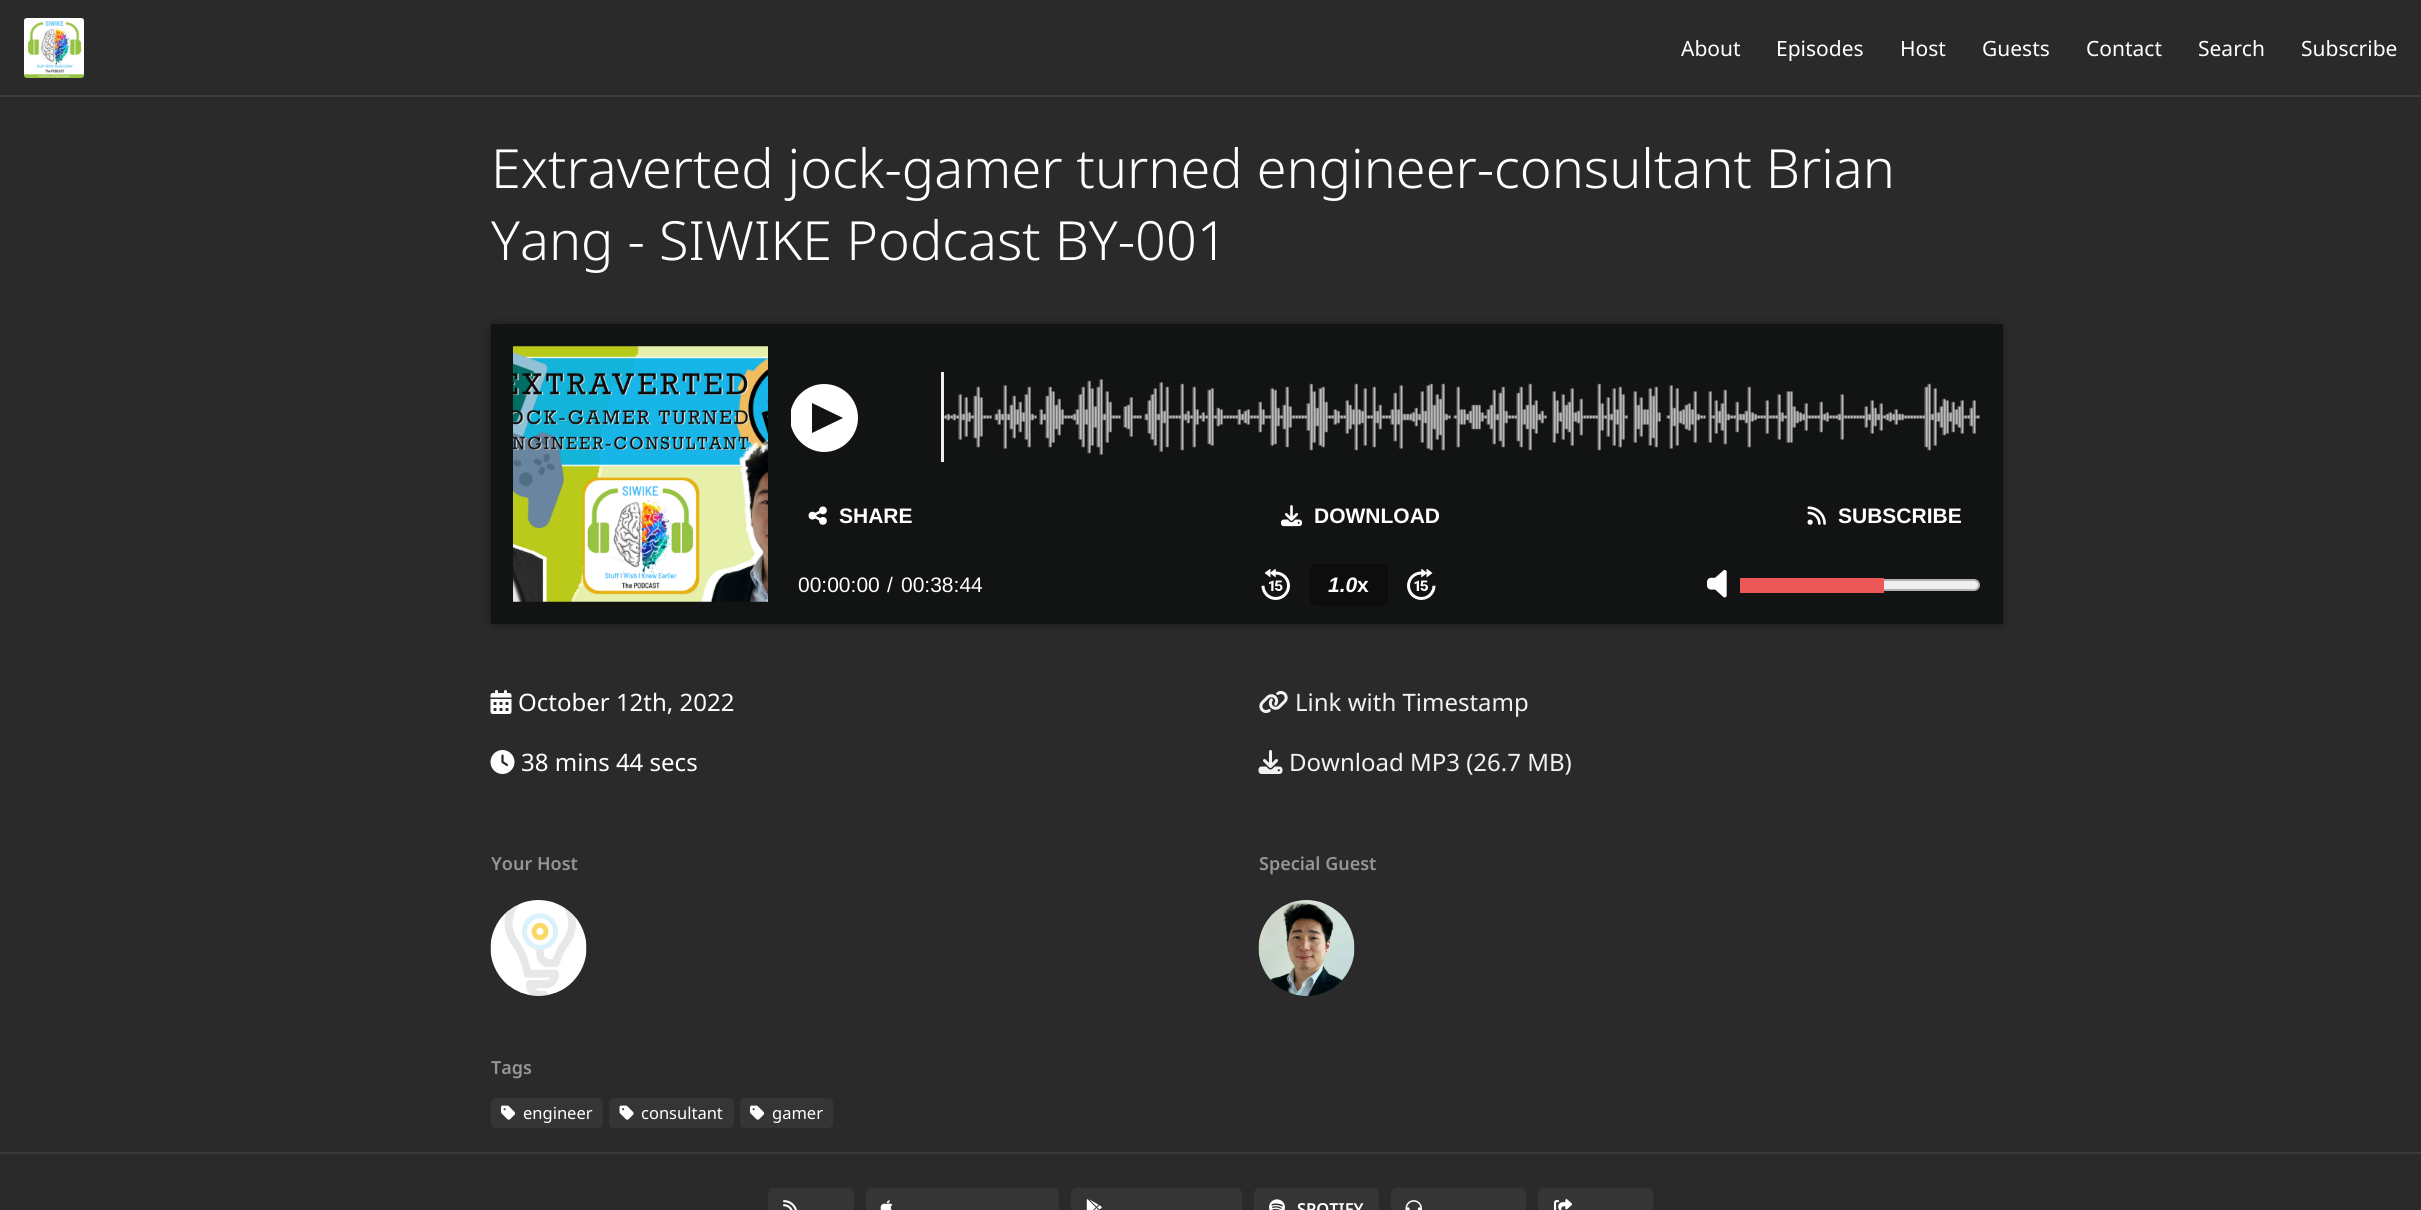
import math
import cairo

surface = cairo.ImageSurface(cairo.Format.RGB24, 2421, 1210)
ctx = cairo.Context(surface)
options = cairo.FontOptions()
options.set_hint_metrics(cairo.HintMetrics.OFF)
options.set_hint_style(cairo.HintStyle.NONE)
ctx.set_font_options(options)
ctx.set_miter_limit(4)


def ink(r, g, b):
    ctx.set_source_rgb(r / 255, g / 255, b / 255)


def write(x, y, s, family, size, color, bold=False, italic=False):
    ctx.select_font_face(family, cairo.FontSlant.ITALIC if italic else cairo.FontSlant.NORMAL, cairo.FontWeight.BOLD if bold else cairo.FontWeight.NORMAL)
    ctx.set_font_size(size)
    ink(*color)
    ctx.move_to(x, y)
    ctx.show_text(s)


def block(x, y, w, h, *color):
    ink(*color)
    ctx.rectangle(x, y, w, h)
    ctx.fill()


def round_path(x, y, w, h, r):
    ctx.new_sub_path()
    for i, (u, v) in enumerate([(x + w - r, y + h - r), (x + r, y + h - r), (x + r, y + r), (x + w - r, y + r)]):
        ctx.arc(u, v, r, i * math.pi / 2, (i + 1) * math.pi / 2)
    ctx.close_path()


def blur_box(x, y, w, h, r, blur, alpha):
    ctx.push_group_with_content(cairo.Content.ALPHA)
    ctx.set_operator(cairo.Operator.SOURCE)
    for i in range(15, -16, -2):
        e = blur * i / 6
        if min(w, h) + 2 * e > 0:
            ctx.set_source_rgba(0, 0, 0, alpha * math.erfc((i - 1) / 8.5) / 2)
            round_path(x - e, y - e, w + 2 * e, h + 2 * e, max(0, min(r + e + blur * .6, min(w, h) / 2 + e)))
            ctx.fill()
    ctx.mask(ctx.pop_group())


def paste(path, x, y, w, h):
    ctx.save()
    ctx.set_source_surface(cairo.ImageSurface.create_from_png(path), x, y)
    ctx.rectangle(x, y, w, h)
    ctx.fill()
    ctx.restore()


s1 = dict(family="Noto Sans", size=21, color=(255, 255, 255))
s2 = dict(family="Noto Sans Light", size=54, color=(255, 255, 255))
s3 = dict(family="Liberation Sans", size=21, color=(255, 255, 255), bold=True)
s4 = dict(family="Liberation Sans", size=21, color=(255, 255, 255))
s5 = dict(family="Liberation Sans", size=21, color=(255, 255, 255), bold=True, italic=True)
s6 = dict(family="Noto Sans", size=24, color=(255, 255, 255))
s7 = dict(family="Noto Sans", size=24, color=(242, 242, 242))
s8 = dict(family="Noto Sans SemiBold", size=18, color=(149, 149, 149))
s9 = dict(family="Noto Sans", size=16.5, color=(255, 255, 255))
s10 = dict(family="Noto Sans SemiBold", size=16.5, color=(255, 255, 255))

ink(42, 42, 42)
ctx.paint()
block(0, 95, 2421, 2, 59, 59, 59)
paste("pic1.png", 24, 18, 60, 60)
write(1681, 56, "About", **s1)
write(1776, 56, "Episodes", **s1)
write(1900, 56, "Host", **s1)
write(1982, 56, "Guests", **s1)
write(2086, 56, "Contact", **s1)
write(2198, 56, "Search", **s1)
write(2301, 56, "Subscribe", **s1)
write(491, 188, "Extraverted jock-gamer turned engineer-consultant Brian", **s2)
write(491, 260, "Yang - SIWIKE Podcast BY-001", **s2)
ink(0, 0, 0)
blur_box(495, 329, 1503, 291, 0, 7, 0.8)
block(491, 324, 1512, 300, 18, 19, 19)
paste("pic2.png", 513, 346, 255, 256)
paste("pic3.png", 513, 346, 255, 256)
ctx.save()
ctx.rectangle(791, 384, 67, 68)
ctx.clip()
ink(255, 255, 255)
ctx.new_path()
ctx.move_to(824, 384)
ctx.curve_to(806, 384, 790, 399, 790, 418)
ctx.curve_to(790, 436, 806, 452, 824, 452)
ctx.curve_to(843, 452, 858, 436, 858, 418)
ctx.curve_to(858, 399, 843, 384, 824, 384)
ctx.close_path()
ctx.move_to(812, 433)
ctx.line_to(812, 403)
ctx.line_to(843, 418)
ctx.close_path()
ctx.fill()
ctx.restore()
block(941, 372, 3, 90, 238, 238, 238)
paste("pic4.png", 944, 379, 1036, 76)
paste("pic5.png", 808, 506, 19, 19)
write(839, 523, "SHARE", **s3)
paste("pic6.png", 1281, 505, 21, 22)
write(1314, 523, "DOWNLOAD", **s3)
paste("pic7.png", 1807, 506, 19, 19)
write(1838, 523, "SUBSCRIBE", **s3)
write(798, 592, "00:00:00", **s4)
write(887, 592, "/", **s4)
write(901, 592, "00:38:44", **s4)
paste("pic8.png", 1261, 569, 29, 31)
ink(13, 13, 13)
round_path(1310, 564, 78, 42, 6)
ctx.fill()
write(1328, 592, "1.0", **s5)
write(1357, 592, "x", **s3)
paste("pic9.png", 1407, 569, 29, 31)
paste("pic10.png", 1707, 569, 20, 29)
ink(239, 239, 239)
round_path(1741, 580, 238, 10, 5)
ctx.fill_preserve()
ink(178, 178, 178)
ctx.stroke()
block(1740, 578, 144, 15, 235, 88, 87)
paste("pic11.png", 490, 690, 22, 24)
write(518, 711, "October 12th, 2022", **s6)
paste("pic12.png", 490, 750, 25, 24)
write(521, 771, "38 mins 44 secs", **s6)
paste("pic13.png", 1259, 691, 29, 22)
write(1295, 711, "Link with Timestamp", **s7)
paste("pic14.png", 1258, 750, 25, 24)
write(1289, 771, "Download MP3 (26.7 MB)", **s7)
write(491, 870, "Your Host", **s8)
paste("pic15.png", 490, 900, 97, 96)
write(1259, 870, "Special Guest", **s8)
paste("pic16.png", 1258, 900, 97, 96)
write(491, 1074, "Tags", **s8)
ink(53, 53, 53)
round_path(491, 1098, 112, 30, 5)
ctx.fill()
paste("pic17.png", 501, 1105, 15, 15)
write(523, 1119, "engineer", **s9)
ink(53, 53, 53)
round_path(609, 1098, 125, 30, 5)
ctx.fill()
paste("pic18.png", 619, 1105, 15, 15)
write(641, 1119, "consultant", **s9)
ink(53, 53, 53)
round_path(740, 1098, 93, 30, 5)
ctx.fill()
paste("pic17.png", 750, 1105, 15, 15)
write(772, 1119, "gamer", **s9)
block(0, 1152, 2421, 2, 59, 59, 59)
ink(53, 53, 53)
round_path(768, 1188, 86, 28, 6)
ctx.fill()
paste("pic19.png", 783, 1200, 14, 10)
round_path(866, 1188, 193, 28, 6)
ctx.fill()
paste("pic20.png", 880, 1200, 13, 10)
round_path(1071, 1188, 171, 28, 6)
ctx.fill()
paste("pic21.png", 1086, 1199, 16, 11)
round_path(1254, 1188, 125, 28, 6)
ctx.fill()
paste("pic22.png", 1269, 1199, 16, 11)
write(1297, 1215, "SPOTIFY", **s10)
ink(53, 53, 53)
round_path(1391, 1188, 135, 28, 6)
ctx.fill()
paste("pic23.png", 1405, 1200, 17, 10)
round_path(1538, 1188, 115, 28, 6)
ctx.fill()
paste("pic24.png", 1554, 1199, 18, 11)
surface.write_to_png("screenshot.png")
